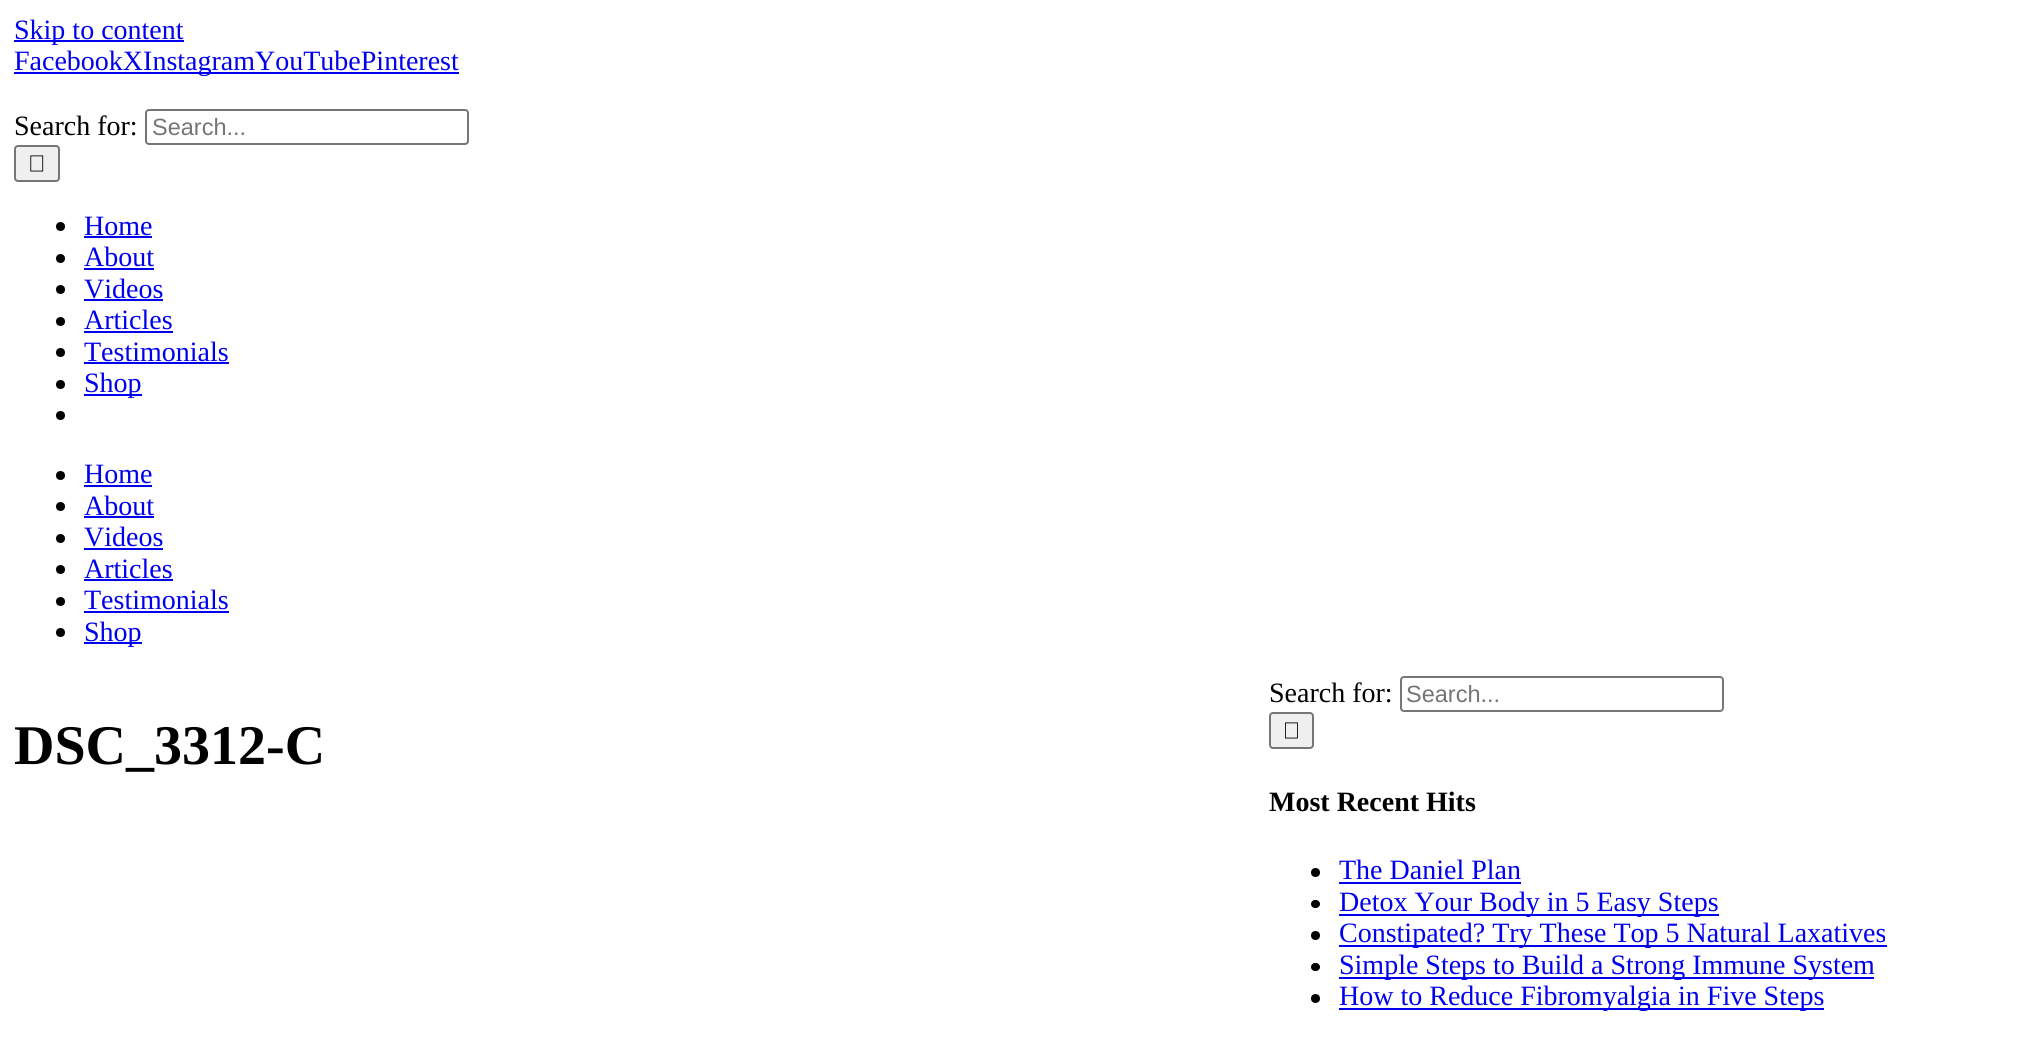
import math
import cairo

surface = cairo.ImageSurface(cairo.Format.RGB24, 2031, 1039)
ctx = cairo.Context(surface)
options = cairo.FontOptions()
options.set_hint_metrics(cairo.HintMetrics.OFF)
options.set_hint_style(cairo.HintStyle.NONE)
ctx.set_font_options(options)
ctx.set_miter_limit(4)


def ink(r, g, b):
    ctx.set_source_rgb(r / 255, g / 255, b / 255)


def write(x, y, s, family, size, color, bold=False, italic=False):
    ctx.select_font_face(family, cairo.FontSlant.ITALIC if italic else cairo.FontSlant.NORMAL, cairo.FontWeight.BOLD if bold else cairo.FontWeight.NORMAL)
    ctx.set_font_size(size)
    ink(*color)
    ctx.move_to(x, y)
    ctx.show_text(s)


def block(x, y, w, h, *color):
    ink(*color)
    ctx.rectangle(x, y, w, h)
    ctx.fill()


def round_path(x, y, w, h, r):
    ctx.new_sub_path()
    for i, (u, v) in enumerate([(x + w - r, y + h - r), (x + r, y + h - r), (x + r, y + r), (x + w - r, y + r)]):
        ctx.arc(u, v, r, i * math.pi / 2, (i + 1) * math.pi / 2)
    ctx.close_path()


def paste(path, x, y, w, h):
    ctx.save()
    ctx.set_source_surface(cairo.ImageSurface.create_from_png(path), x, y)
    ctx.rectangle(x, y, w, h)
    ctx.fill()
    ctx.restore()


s1 = dict(family="Liberation Serif", size=28, color=(0, 0, 238))
s2 = dict(family="Liberation Serif", size=28, color=(0, 0, 0))
s3 = dict(family="Liberation Sans", size=23.5, color=(117, 117, 117))
s4 = dict(family="Liberation Serif", size=56, color=(0, 0, 0), bold=True)
s5 = dict(family="Liberation Serif", size=28, color=(0, 0, 0), bold=True)

ink(255, 255, 255)
ctx.paint()
block(14, 40, 170, 2, 0, 0, 238)
write(14, 39, "Skip to content", **s1)
block(14, 72, 445, 2, 0, 0, 238)
write(14, 70, "FacebookXInstagramYouTubePinterest", **s1)
write(14, 135, "Search for:", **s2)
round_path(146, 110, 322, 34, 3)
ink(118, 118, 118)
ctx.stroke()
write(152, 135, "Search...", **s3)
ink(239, 239, 239)
round_path(15, 146, 44, 35, 3)
ctx.fill_preserve()
ink(118, 118, 118)
ctx.stroke()
paste("pic1.png", 30, 155, 14, 17)
ink(0, 0, 0)
ctx.arc(60.5, 226.5, 4.5, 0, 2 * math.pi)
ctx.fill()
write(84, 235, "Home", **s1)
block(84, 236, 68, 2, 0, 0, 238)
ink(0, 0, 0)
ctx.new_path()
ctx.arc(60.5, 258.5, 4.5, 0, 2 * math.pi)
ctx.fill()
write(84, 266, "About", **s1)
block(84, 268, 70, 2, 0, 0, 238)
ink(0, 0, 0)
ctx.new_path()
ctx.arc(60.5, 289.5, 4.5, 0, 2 * math.pi)
ctx.fill()
write(84, 298, "Videos", **s1)
block(84, 299, 79, 2, 0, 0, 238)
ink(0, 0, 0)
ctx.new_path()
ctx.arc(60.5, 321.5, 4.5, 0, 2 * math.pi)
ctx.fill()
write(84, 329, "Articles", **s1)
block(84, 331, 89, 2, 0, 0, 238)
ink(0, 0, 0)
ctx.new_path()
ctx.arc(60.5, 352.5, 4.5, 0, 2 * math.pi)
ctx.fill()
write(84, 361, "Testimonials", **s1)
block(84, 362, 145, 2, 0, 0, 238)
ink(0, 0, 0)
ctx.new_path()
ctx.arc(60.5, 384.5, 4.5, 0, 2 * math.pi)
ctx.fill()
block(84, 394, 58, 2, 0, 0, 238)
write(84, 392, "Shop", **s1)
ink(0, 0, 0)
ctx.new_path()
ctx.arc(60.5, 415.5, 4.5, 0, 2 * math.pi)
ctx.fill()
ctx.arc(60.5, 475.5, 4.5, 0, 2 * math.pi)
ctx.fill()
write(84, 483, "Home", **s1)
block(84, 485, 68, 2, 0, 0, 238)
ink(0, 0, 0)
ctx.new_path()
ctx.arc(60.5, 506.5, 4.5, 0, 2 * math.pi)
ctx.fill()
write(84, 515, "About", **s1)
block(84, 516, 70, 2, 0, 0, 238)
ink(0, 0, 0)
ctx.new_path()
ctx.arc(60.5, 538.5, 4.5, 0, 2 * math.pi)
ctx.fill()
write(84, 546, "Videos", **s1)
block(84, 548, 79, 2, 0, 0, 238)
ink(0, 0, 0)
ctx.new_path()
ctx.arc(60.5, 569.5, 4.5, 0, 2 * math.pi)
ctx.fill()
write(84, 578, "Articles", **s1)
block(84, 579, 89, 2, 0, 0, 238)
ink(0, 0, 0)
ctx.new_path()
ctx.arc(60.5, 601.5, 4.5, 0, 2 * math.pi)
ctx.fill()
write(84, 609, "Testimonials", **s1)
block(84, 611, 145, 2, 0, 0, 238)
ink(0, 0, 0)
ctx.new_path()
ctx.arc(60.5, 632.5, 4.5, 0, 2 * math.pi)
ctx.fill()
block(84, 642, 58, 2, 0, 0, 238)
write(84, 641, "Shop", **s1)
write(14, 764, "DSC_3312-C", **s4)
write(1269, 702, "Search for:", **s2)
round_path(1401, 677, 322, 34, 3)
ink(118, 118, 118)
ctx.stroke()
write(1406, 702, "Search...", **s3)
ink(239, 239, 239)
round_path(1270, 713, 43, 35, 3)
ctx.fill_preserve()
ink(118, 118, 118)
ctx.stroke()
paste("pic2.png", 1285, 722, 13, 17)
write(1269, 811, "Most Recent Hits", **s5)
ctx.new_path()
ctx.arc(1315.5, 872.5, 4.5, 0, 2 * math.pi)
ctx.fill()
write(1339, 879, "The Daniel Plan", **s1)
block(1339, 882, 182, 2, 0, 0, 238)
ink(0, 0, 0)
round_path(1311, 900, 9, 8, 4)
ctx.fill()
block(1339, 914, 380, 2, 0, 0, 238)
write(1339, 911, "Detox Your Body in 5 Easy Steps", **s1)
ink(0, 0, 0)
ctx.new_path()
ctx.arc(1315.5, 935.5, 4.5, 0, 2 * math.pi)
ctx.fill()
block(1339, 945, 548, 2, 0, 0, 238)
write(1339, 942, "Constipated? Try These Top 5 Natural Laxatives", **s1)
ink(0, 0, 0)
round_path(1311, 963, 9, 8, 4)
ctx.fill()
block(1339, 977, 535, 2, 0, 0, 238)
write(1339, 974, "Simple Steps to Build a Strong Immune System", **s1)
ink(0, 0, 0)
ctx.new_path()
ctx.arc(1315.5, 998.5, 4.5, 0, 2 * math.pi)
ctx.fill()
block(1339, 1008, 485, 2, 0, 0, 238)
write(1339, 1005, "How to Reduce Fibromyalgia in Five Steps", **s1)
surface.write_to_png("screenshot.png")
